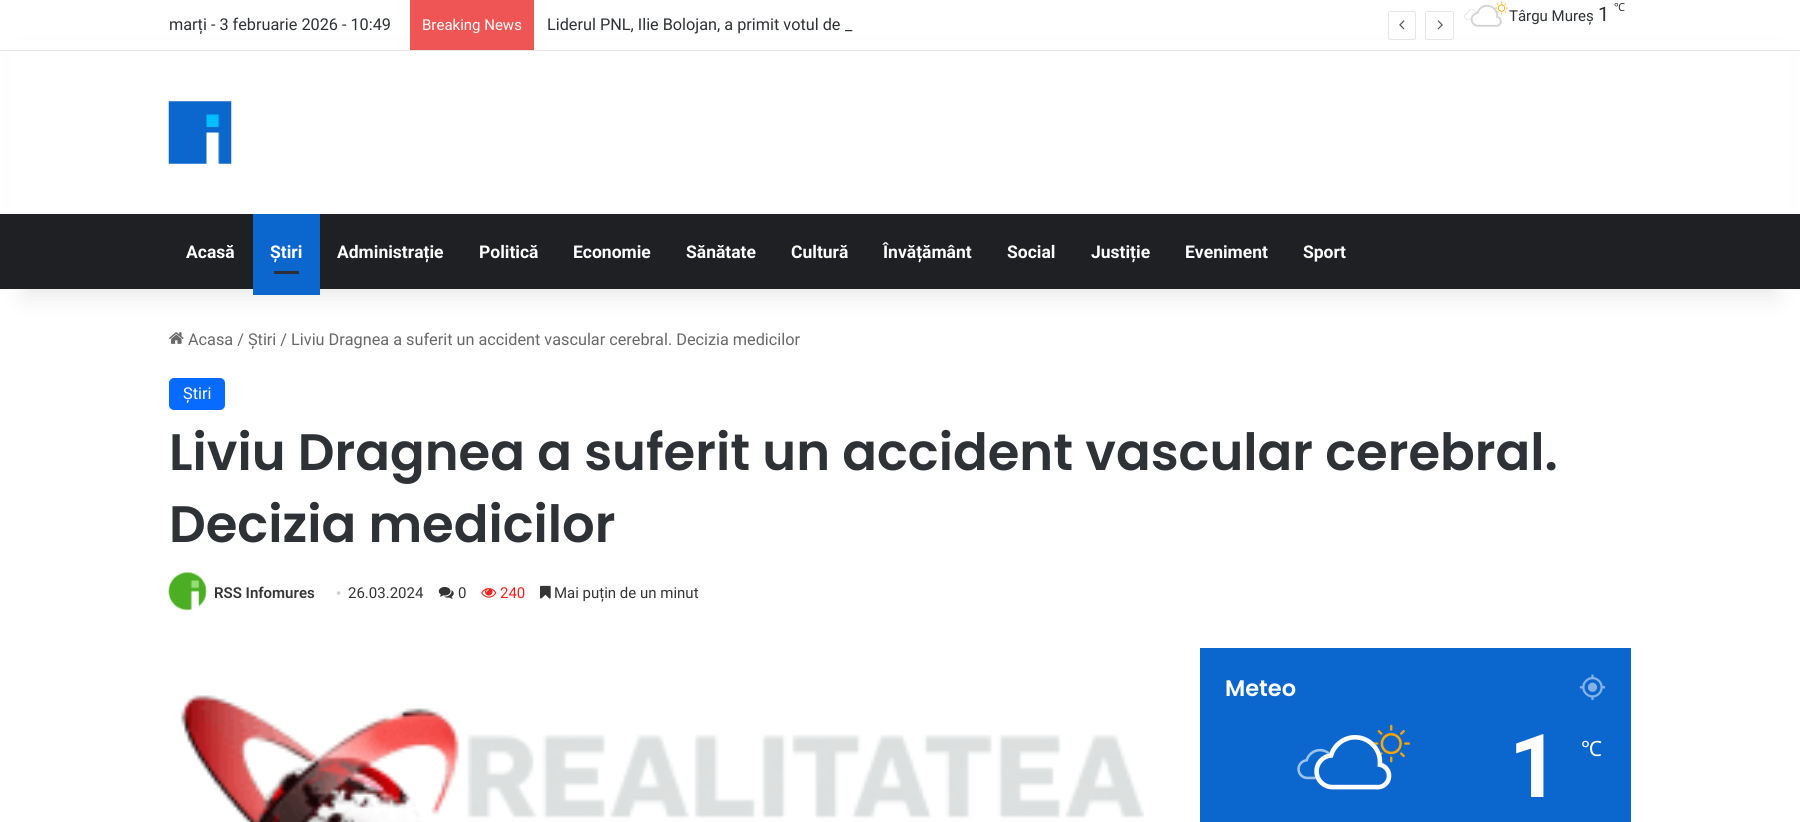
import math
import cairo

surface = cairo.ImageSurface(cairo.Format.RGB24, 1800, 822)
ctx = cairo.Context(surface)
options = cairo.FontOptions()
options.set_hint_metrics(cairo.HintMetrics.OFF)
options.set_hint_style(cairo.HintStyle.NONE)
ctx.set_font_options(options)
ctx.set_miter_limit(4)


def ink(r, g, b):
    ctx.set_source_rgb(r / 255, g / 255, b / 255)


def write(x, y, s, family, size, color, bold=False, italic=False):
    ctx.select_font_face(family, cairo.FontSlant.ITALIC if italic else cairo.FontSlant.NORMAL, cairo.FontWeight.BOLD if bold else cairo.FontWeight.NORMAL)
    ctx.set_font_size(size)
    ink(*color)
    ctx.move_to(x, y)
    ctx.show_text(s)


def block(x, y, w, h, *color):
    ink(*color)
    ctx.rectangle(x, y, w, h)
    ctx.fill()


def round_path(x, y, w, h, r):
    ctx.new_sub_path()
    for i, (u, v) in enumerate([(x + w - r, y + h - r), (x + r, y + h - r), (x + r, y + r), (x + w - r, y + r)]):
        ctx.arc(u, v, r, i * math.pi / 2, (i + 1) * math.pi / 2)
    ctx.close_path()


def blur_box(x, y, w, h, r, blur, alpha):
    ctx.push_group_with_content(cairo.Content.ALPHA)
    ctx.set_operator(cairo.Operator.SOURCE)
    for i in range(15, -16, -2):
        e = blur * i / 6
        if min(w, h) + 2 * e > 0:
            ctx.set_source_rgba(0, 0, 0, alpha * math.erfc((i - 1) / 8.5) / 2)
            round_path(x - e, y - e, w + 2 * e, h + 2 * e, max(0, min(r + e + blur * .6, min(w, h) / 2 + e)))
            ctx.fill()
    ctx.mask(ctx.pop_group())


def paste(path, x, y, w, h):
    ctx.save()
    ctx.set_source_surface(cairo.ImageSurface.create_from_png(path), x, y)
    ctx.rectangle(x, y, w, h)
    ctx.fill()
    ctx.restore()


s1 = dict(family="Roboto", size=16.25, color=(46, 49, 54))
s2 = dict(family="Roboto", size=15, color=(255, 255, 255))
s3 = dict(family="Roboto", size=15, color=(46, 49, 54))
s4 = dict(family="Roboto", size=20, color=(46, 49, 54))
s5 = dict(family="Noto Sans", size=11, color=(46, 49, 54))
s6 = dict(family="Roboto", size=17.5, color=(255, 255, 255), bold=True)
s7 = dict(family="Roboto", size=16.25, color=(104, 104, 104))
s8 = dict(family="Roboto", size=16.25, color=(255, 255, 255))
s9 = dict(family="Poppins SemiBold", size=51.25, color=(46, 49, 54))
s10 = dict(family="Roboto SemiBold", size=15, color=(53, 53, 53))
s11 = dict(family="Liberation Serif", size=15, color=(205, 205, 205))
s12 = dict(family="Roboto", size=15, color=(53, 53, 53))
s13 = dict(family="Roboto", size=15, color=(241, 32, 32))
s14 = dict(family="Poppins SemiBold", size=22.5, color=(255, 255, 255))
s15 = dict(family="Roboto", size=88, color=(255, 255, 255), bold=True)
s16 = dict(family="Noto Sans", size=21, color=(255, 255, 255))

ink(255, 255, 255)
ctx.paint()
paste("pic8.png", 169, 332, 15, 12)
ink(0, 0, 0)
blur_box(25, 56, 1750, 239, 0, 12.5, 0.1)
block(9, 40, 1782, 174, 255, 255, 255)
block(0, 50, 1800, 1, 230, 230, 230)
write(169, 30, "marți - 3 februarie 2026 - 10:49", **s1)
block(410, 0, 124, 50, 240, 85, 85)
write(422, 30, "Breaking News", **s2)
write(547, 30, "Liderul PNL, Ilie Bolojan, a primit votul de", **s1)
write(845, 30, "_", **s1)
round_path(1388.5, 11.5, 27, 28, 2)
ink(230, 230, 230)
ctx.set_line_width(1)
ctx.stroke()
paste("pic1.png", 1399, 20, 6, 10)
round_path(1425.5, 11.5, 28, 28, 2)
ctx.stroke()
paste("pic2.png", 1437, 20, 6, 10)
paste("pic3.png", 1495, 1, 13, 14)
paste("pic6.png", 1464, 9, 13, 11)
paste("pic5.png", 1470, 8, 28, 12)
paste("pic4.png", 1470, 4, 32, 23)
write(1509, 21, "Târgu Mureș", **s3)
write(1598, 21, "1", **s4)
write(1614, 11, "℃", **s5)
paste("pic7.png", 168, 101, 64, 63)
block(0, 214, 1800, 75, 31, 32, 36)
write(186, 258, "Acasă", **s6)
block(253, 214, 67, 81, 11, 103, 206)
write(270, 258, "Știri", **s6)
block(274, 271, 25, 3, 44, 47, 52)
write(337, 258, "Administrație", **s6)
write(479, 258, "Politică", **s6)
write(573, 258, "Economie", **s6)
write(686, 258, "Sănătate", **s6)
write(791, 258, "Cultură", **s6)
write(883, 258, "Învățământ", **s6)
write(1007, 258, "Social", **s6)
write(1091, 258, "Justiție", **s6)
write(1185, 258, "Eveniment", **s6)
write(1303, 258, "Sport", **s6)
write(188, 345, "Acasa / Știri / Liviu Dragnea a suferit un accident vascular cerebral. Decizia medicilor", **s7)
ink(8, 107, 255)
round_path(169, 378, 56, 32, 5)
ctx.fill()
write(183, 399, "Știri", **s8)
write(169, 470, "Liviu Dragnea a suferit un accident vascular cerebral.", **s9)
write(169, 542, "Decizia medicilor", **s9)
paste("pic9.png", 168, 572, 39, 39)
write(214, 598, "RSS Infomures", **s10)
write(336, 598, "•", **s11)
write(348, 598, "26.03.2024", **s12)
paste("pic10.png", 438, 587, 16, 12)
write(458, 598, "0", **s12)
paste("pic11.png", 481, 588, 16, 10)
write(500, 598, "240", **s13)
paste("pic12.png", 540, 585, 11, 14)
write(554, 598, "Mai puțin de un minut", **s12)
paste("pic13.png", 180, 695, 964, 127)
block(1200, 648, 431, 174, 11, 103, 206)
write(1225, 696, "Meteo", **s14)
paste("pic14.png", 1579, 674, 27, 26)
paste("pic15.png", 1373, 724, 37, 39)
paste("pic17.png", 1297, 748, 33, 32)
paste("pic18.png", 1315, 742, 67, 38)
paste("pic16.png", 1314, 735, 78, 55)
write(1509, 797, "1", **s15)
write(1581, 756, "℃", **s16)
surface.write_to_png("screenshot.png")
